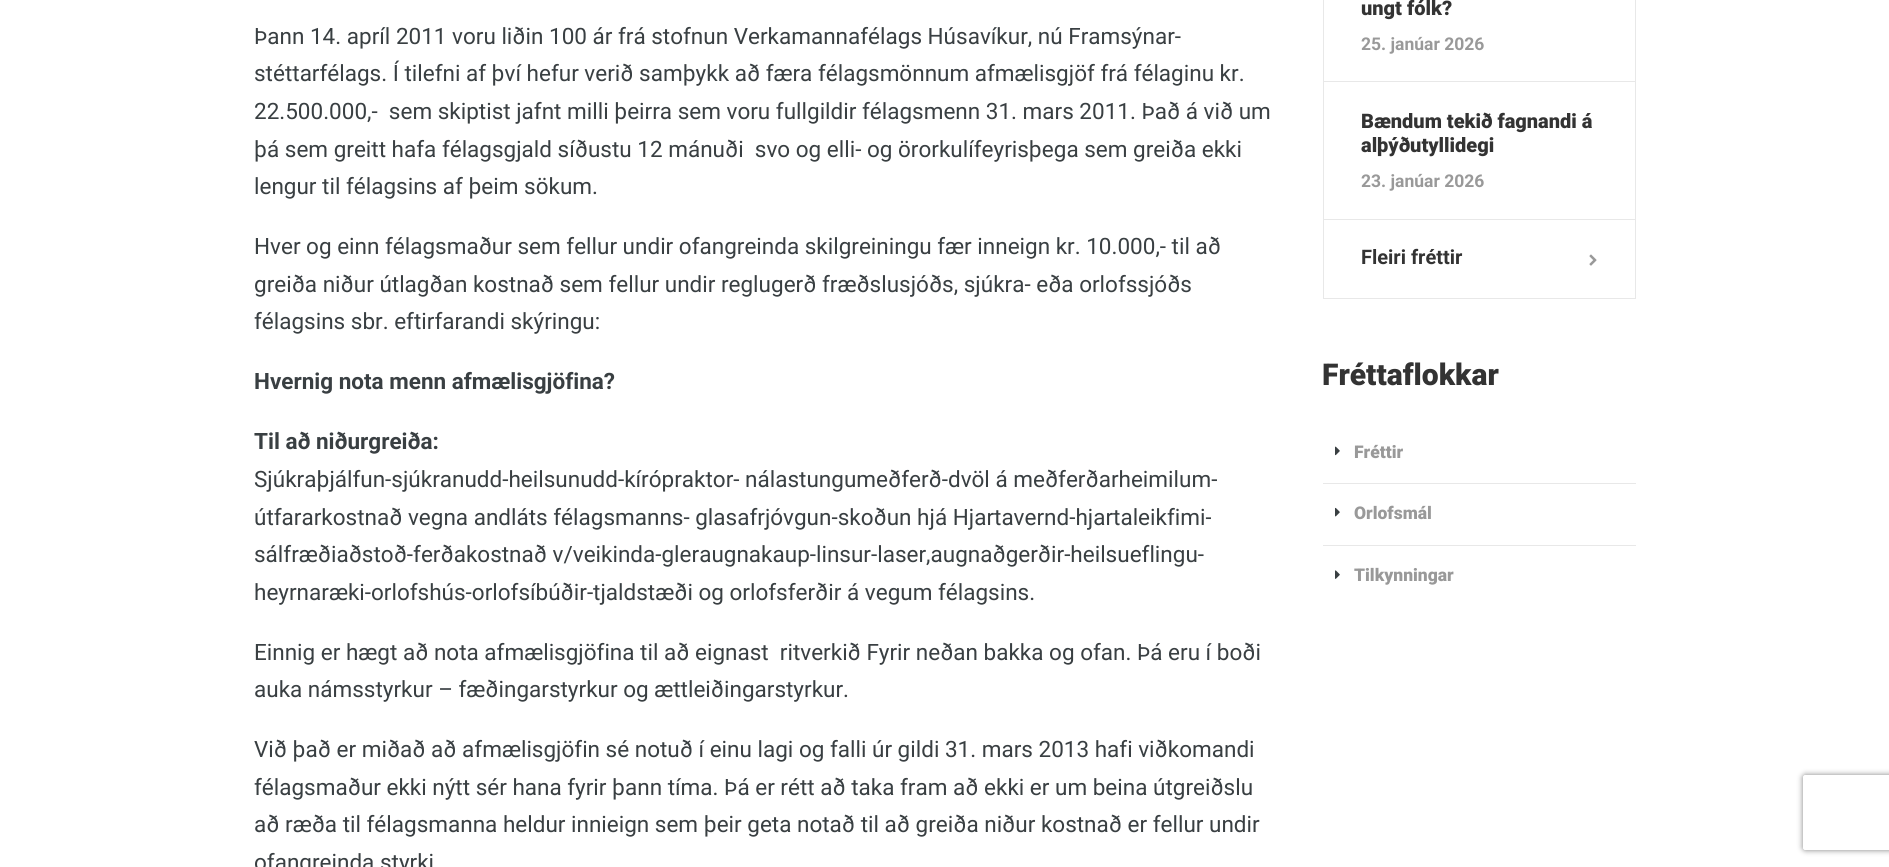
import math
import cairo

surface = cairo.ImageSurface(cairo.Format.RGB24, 1889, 867)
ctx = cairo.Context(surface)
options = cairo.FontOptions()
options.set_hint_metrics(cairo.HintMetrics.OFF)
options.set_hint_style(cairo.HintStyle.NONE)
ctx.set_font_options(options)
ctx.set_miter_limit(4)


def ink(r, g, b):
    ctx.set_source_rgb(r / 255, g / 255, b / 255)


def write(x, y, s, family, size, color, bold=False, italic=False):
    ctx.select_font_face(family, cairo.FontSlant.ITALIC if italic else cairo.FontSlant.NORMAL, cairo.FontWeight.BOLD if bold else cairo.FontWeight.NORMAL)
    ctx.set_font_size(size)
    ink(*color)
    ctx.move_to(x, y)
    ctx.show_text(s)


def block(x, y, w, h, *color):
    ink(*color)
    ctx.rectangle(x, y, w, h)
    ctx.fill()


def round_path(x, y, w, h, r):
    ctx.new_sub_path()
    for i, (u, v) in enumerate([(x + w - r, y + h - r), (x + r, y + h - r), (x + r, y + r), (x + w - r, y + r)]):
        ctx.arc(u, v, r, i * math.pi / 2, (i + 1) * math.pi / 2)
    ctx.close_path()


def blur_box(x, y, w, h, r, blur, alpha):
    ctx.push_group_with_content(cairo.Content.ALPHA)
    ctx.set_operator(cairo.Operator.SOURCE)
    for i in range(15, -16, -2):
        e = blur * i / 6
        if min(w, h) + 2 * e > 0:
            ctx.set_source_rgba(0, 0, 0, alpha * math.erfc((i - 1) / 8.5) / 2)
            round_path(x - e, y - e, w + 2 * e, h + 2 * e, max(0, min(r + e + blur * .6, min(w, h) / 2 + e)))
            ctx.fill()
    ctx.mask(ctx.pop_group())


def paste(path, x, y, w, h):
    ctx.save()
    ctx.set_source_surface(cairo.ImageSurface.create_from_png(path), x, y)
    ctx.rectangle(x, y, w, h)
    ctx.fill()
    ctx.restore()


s1 = dict(family="Roboto", size=22.5, color=(57, 63, 66))
s2 = dict(family="Roboto", size=22.5, color=(57, 63, 66), bold=True)
s3 = dict(family="Roboto Black", size=20, color=(51, 51, 51))
s4 = dict(family="Roboto", size=17.5, color=(153, 153, 153), bold=True)
s5 = dict(family="Roboto", size=20, color=(51, 51, 51), bold=True)
s6 = dict(family="Roboto Black", size=30, color=(51, 51, 51))
s7 = dict(family="Roboto Black", size=17.5, color=(153, 153, 153))

ink(255, 255, 255)
ctx.paint()
write(254, 44, "Þann 14. apríl 2011 voru liðin 100 ár frá stofnun Verkamannafélags Húsavíkur, nú Framsýnar-", **s1)
write(254, 81, "stéttarfélags. Í tilefni af því hefur verið samþykk að færa félagsmönnum afmælisgjöf frá félaginu kr.", **s1)
write(254, 119, "22.500.000,-  sem skiptist jafnt milli þeirra sem voru fullgildir félagsmenn 31. mars 2011. Það á við um", **s1)
write(254, 157, "þá sem greitt hafa félagsgjald síðustu 12 mánuði  svo og elli- og örorkulífeyrisþega sem greiða ekki", **s1)
write(254, 194, "lengur til félagsins af þeim sökum.", **s1)
write(254, 254, "Hver og einn félagsmaður sem fellur undir ofangreinda skilgreiningu fær inneign kr. 10.000,- til að", **s1)
write(254, 292, "greiða niður útlagðan kostnað sem fellur undir reglugerð fræðslusjóðs, sjúkra- eða orlofssjóðs", **s1)
write(254, 329, "félagsins sbr. eftirfarandi skýringu:", **s1)
write(254, 389, "Hvernig nota menn afmælisgjöfina?", **s2)
write(254, 449, "Til að niðurgreiða:", **s2)
write(254, 487, "Sjúkraþjálfun-sjúkranudd-heilsunudd-kírópraktor- nálastungumeðferð-dvöl á meðferðarheimilum-", **s1)
write(254, 525, "útfararkostnað vegna andláts félagsmanns- glasafrjóvgun-skoðun hjá Hjartavernd-hjartaleikfimi-", **s1)
write(254, 562, "sálfræðiaðstoð-ferðakostnað v/veikinda-gleraugnakaup-linsur-laser,augnaðgerðir-heilsueflingu-", **s1)
write(254, 600, "heyrnaræki-orlofshús-orlofsíbúðir-tjaldstæði og orlofsferðir á vegum félagsins.", **s1)
write(254, 660, "Einnig er hægt að nota afmælisgjöfina til að eignast  ritverkið Fyrir neðan bakka og ofan. Þá eru í boði", **s1)
write(254, 697, "auka námsstyrkur – fæðingarstyrkur og ættleiðingarstyrkur.", **s1)
write(254, 757, "Við það er miðað að afmælisgjöfin sé notuð í einu lagi og falli úr gildi 31. mars 2013 hafi viðkomandi", **s1)
write(254, 795, "félagsmaður ekki nýtt sér hana fyrir þann tíma. Þá er rétt að taka fram að ekki er um beina útgreiðslu", **s1)
write(254, 832, "að ræða til félagsmanna heldur innieign sem þeir geta notað til að greiða niður kostnað er fellur undir", **s1)
write(254, 870, "ofangreinda styrki", **s1)
ctx.rectangle(1323.5, -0.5, 312, 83)
ink(232, 232, 232)
ctx.set_line_width(1)
ctx.stroke()
write(1361, 15, "ungt fólk?", **s3)
write(1361, 50, "25. janúar 2026", **s4)
block(1324, 82, 311, 1, 255, 255, 255)
ctx.rectangle(1323.5, 81.5, 312, 138)
ink(232, 232, 232)
ctx.stroke()
write(1361, 128, "Bændum tekið fagnandi á", **s3)
write(1361, 152, "alþýðutyllidegi", **s3)
write(1361, 187, "23. janúar 2026", **s4)
ctx.rectangle(1323.5, 219.5, 312, 79)
ink(232, 232, 232)
ctx.stroke()
write(1361, 264, "Fleiri fréttir", **s5)
paste("pic1.png", 1589, 254, 8, 12)
write(1322, 385, "Fréttaflokkar", **s6)
paste("pic2.png", 1335, 446, 5, 10)
write(1354, 458, "Fréttir", **s7)
block(1323, 483, 313, 1, 232, 232, 232)
paste("pic3.png", 1335, 507, 5, 10)
write(1354, 519, "Orlofsmál", **s7)
block(1323, 545, 313, 1, 232, 232, 232)
paste("pic4.png", 1335, 570, 5, 9)
write(1354, 581, "Tilkynningar", **s7)
ctx.save()
ctx.set_fill_rule(cairo.FillRule.EVEN_ODD)
ctx.new_path()
ctx.move_to(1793, 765)
ctx.line_to(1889, 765)
ctx.line_to(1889, 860)
ctx.line_to(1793, 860)
ctx.close_path()
ctx.move_to(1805.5, 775)
ctx.line_to(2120.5, 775)
ctx.curve_to(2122, 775, 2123, 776, 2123, 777.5)
ctx.line_to(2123, 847.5)
ctx.curve_to(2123, 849, 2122, 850, 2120.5, 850)
ctx.line_to(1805.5, 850)
ctx.curve_to(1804, 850, 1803, 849, 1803, 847.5)
ctx.line_to(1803, 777.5)
ctx.curve_to(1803, 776, 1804, 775, 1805.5, 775)
ctx.close_path()
ctx.clip()
ink(128, 128, 128)
blur_box(1803, 775, 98, 75, 2.5, 3, 1)
ctx.restore()
surface.write_to_png("screenshot.png")
